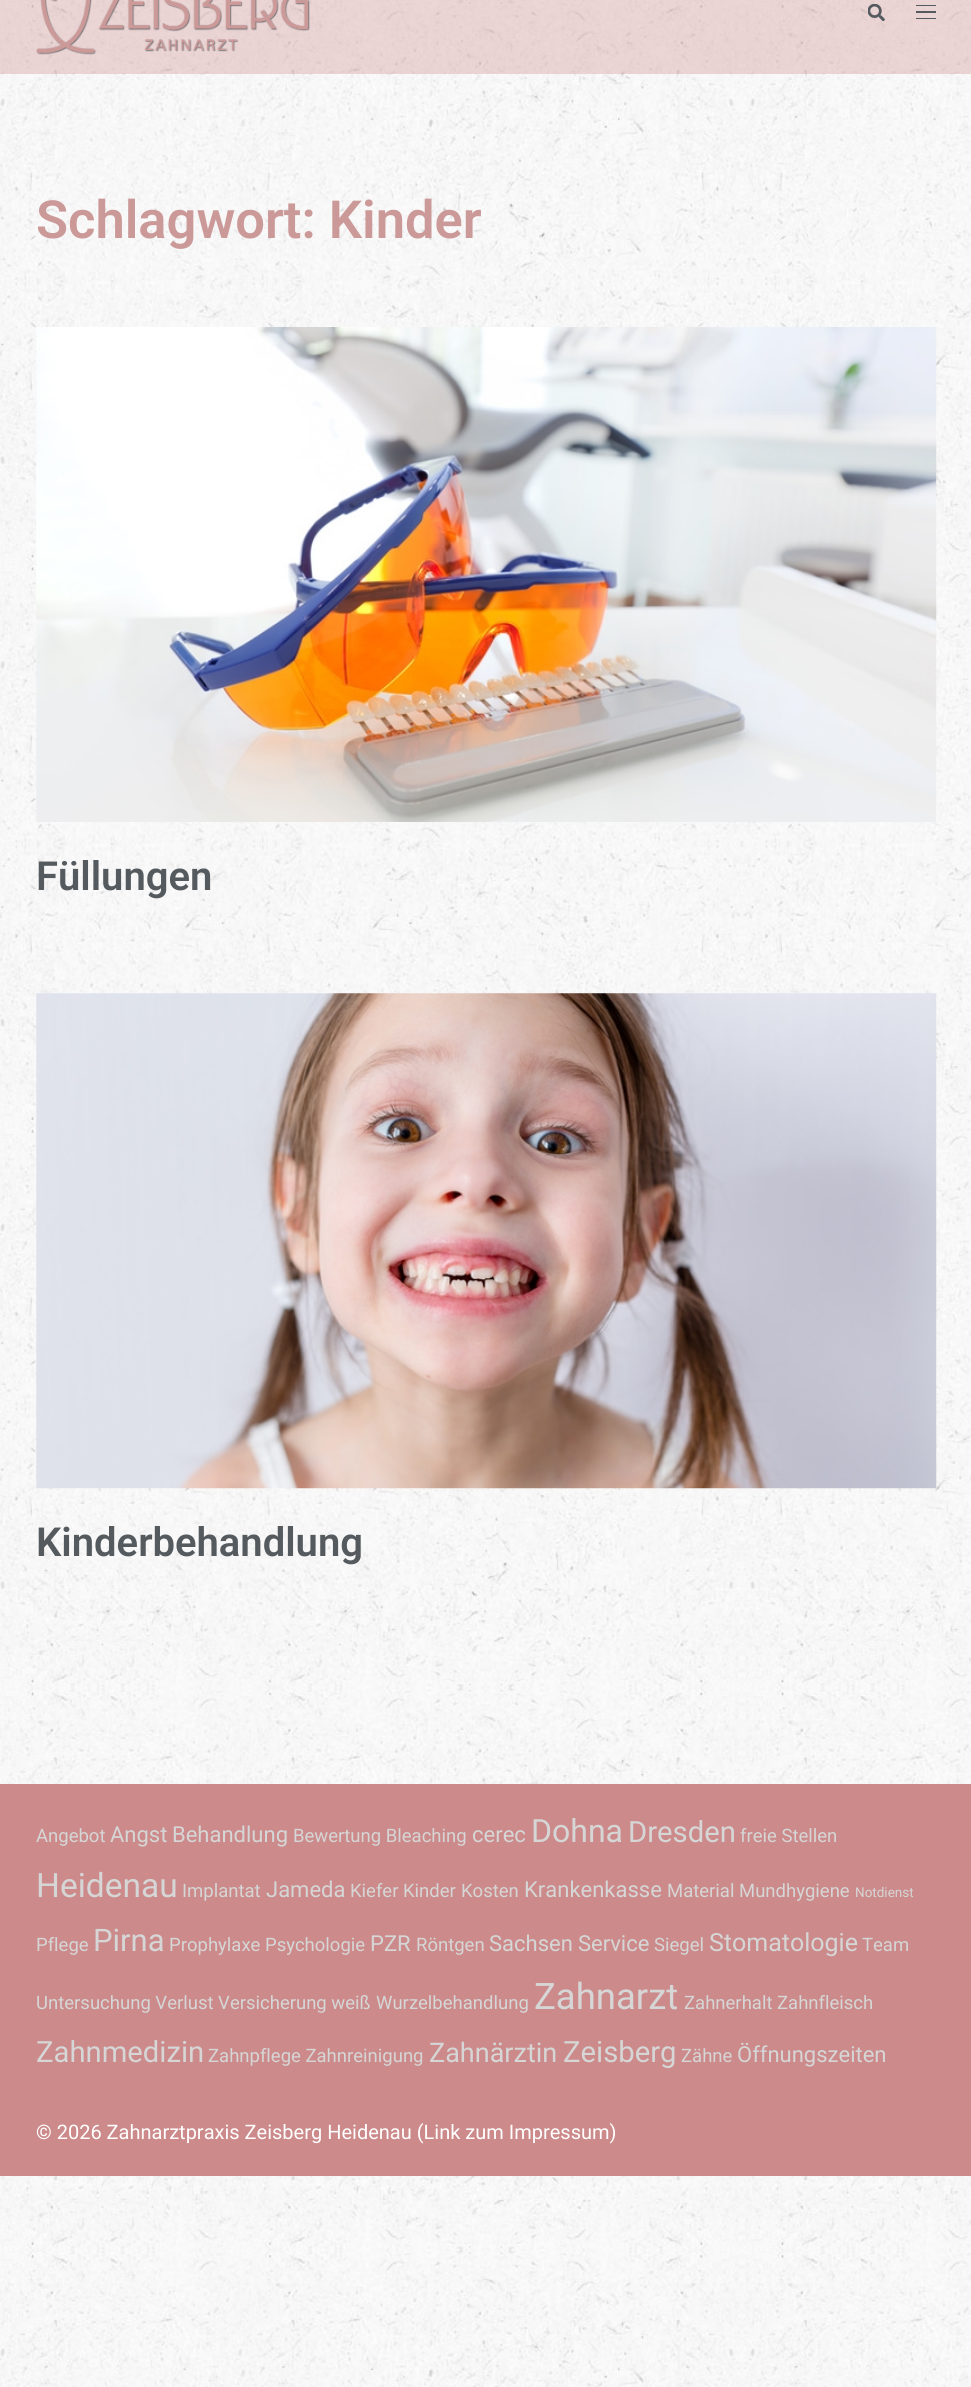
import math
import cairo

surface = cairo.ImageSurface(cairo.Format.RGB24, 971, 2387)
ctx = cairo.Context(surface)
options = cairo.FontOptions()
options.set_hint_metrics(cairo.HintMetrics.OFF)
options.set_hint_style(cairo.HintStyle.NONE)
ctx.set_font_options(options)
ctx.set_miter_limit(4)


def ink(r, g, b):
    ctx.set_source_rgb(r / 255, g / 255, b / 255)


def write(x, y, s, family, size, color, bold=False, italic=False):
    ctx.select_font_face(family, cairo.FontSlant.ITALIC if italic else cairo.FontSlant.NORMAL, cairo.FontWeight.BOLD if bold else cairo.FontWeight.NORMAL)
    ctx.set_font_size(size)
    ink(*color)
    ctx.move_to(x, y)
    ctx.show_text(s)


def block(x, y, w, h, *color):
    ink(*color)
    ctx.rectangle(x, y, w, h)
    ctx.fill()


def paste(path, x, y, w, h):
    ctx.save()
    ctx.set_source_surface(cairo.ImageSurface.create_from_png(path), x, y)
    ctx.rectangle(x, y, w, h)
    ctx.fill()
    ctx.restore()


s1 = dict(family="Roboto SemiBold", size=52.5, color=(204, 153, 153))
s2 = dict(family="Roboto SemiBold", size=40, color=(84, 90, 94))
s3 = dict(family="Roboto", size=18.5, color=(214, 214, 214))
s4 = dict(family="Roboto", size=22, color=(214, 214, 214))
s5 = dict(family="Roboto", size=32, color=(214, 214, 214))
s6 = dict(family="Roboto", size=29.25, color=(214, 214, 214))
s7 = dict(family="Roboto", size=33.5, color=(214, 214, 214))
s8 = dict(family="Roboto", size=13.5, color=(214, 214, 214))
s9 = dict(family="Roboto", size=31, color=(214, 214, 214))
s10 = dict(family="Roboto", size=25, color=(214, 214, 214))
s11 = dict(family="Roboto", size=36.5, color=(214, 214, 214))
s12 = dict(family="Roboto", size=27, color=(214, 214, 214))
s13 = dict(family="Roboto", size=20, color=(255, 255, 255))

ink(255, 255, 255)
ctx.paint()
paste("pic1.png", 0, 0, 971, 2387)
ctx.set_source_rgba(0.8, 0.541, 0.541, 0.33)
ctx.rectangle(0, 0, 971, 74)
ctx.fill()
paste("pic2.png", 36, 0, 274, 55)
paste("pic3.png", 868, 4, 17, 17)
block(916, 5, 20, 1, 84, 90, 94)
block(916, 11, 20, 2, 84, 90, 94)
block(916, 18, 20, 1, 84, 90, 94)
write(36, 238, "Schlagwort: Kinder", **s1)
paste("pic4.png", 36, 327, 901, 495)
write(36, 890, "Füllungen", **s2)
paste("pic5.png", 36, 993, 901, 496)
write(36, 1556, "Kinderbehandlung", **s2)
block(0, 1784, 971, 392, 204, 138, 138)
write(36, 1842, "Angebot", **s3)
write(110, 1842, "Angst", **s4)
write(172, 1842, "Behandlung", **s4)
write(293, 1842, "Bewertung Bleaching", **s3)
write(472, 1842, "cerec", **s4)
write(531, 1842, "Dohna", **s5)
write(628, 1842, "Dresden", **s6)
write(740, 1842, "freie Stellen", **s3)
write(36, 1897, "Heidenau", **s7)
write(182, 1897, "Implantat", **s3)
write(266, 1897, "Jameda", **s4)
write(350, 1897, "Kiefer", **s3)
write(403, 1897, "Kinder", **s3)
write(461, 1897, "Kosten", **s3)
write(524, 1897, "Krankenkasse", **s4)
write(667, 1897, "Material Mundhygiene", **s3)
write(855, 1897, "Notdienst", **s8)
write(36, 1951, "Pflege", **s3)
write(93, 1951, "Pirna", **s9)
write(169, 1951, "Prophylaxe Psychologie", **s3)
write(370, 1951, "PZR", **s4)
write(416, 1951, "Röntgen", **s3)
write(489, 1951, "Sachsen", **s4)
write(578, 1951, "Service", **s4)
write(654, 1951, "Siegel", **s3)
write(709, 1951, "Stomatologie", **s10)
write(862, 1951, "Team", **s3)
write(36, 2009, "Untersuchung Verlust Versicherung weiß", **s3)
write(376, 2009, "Wurzelbehandlung", **s3)
write(534, 2009, "Zahnarzt", **s11)
write(684, 2009, "Zahnerhalt Zahnfleisch", **s3)
write(36, 2062, "Zahnmedizin", **s6)
write(208, 2062, "Zahnpflege Zahnreinigung", **s3)
write(429, 2062, "Zahnärztin", **s12)
write(563, 2062, "Zeisberg", **s6)
write(681, 2062, "Zähne", **s3)
write(737, 2062, "Öffnungszeiten", **s4)
write(36, 2139, "© 2026 Zahnarztpraxis Zeisberg Heidenau (Link zum Impressum)", **s13)
surface.write_to_png("screenshot.png")
